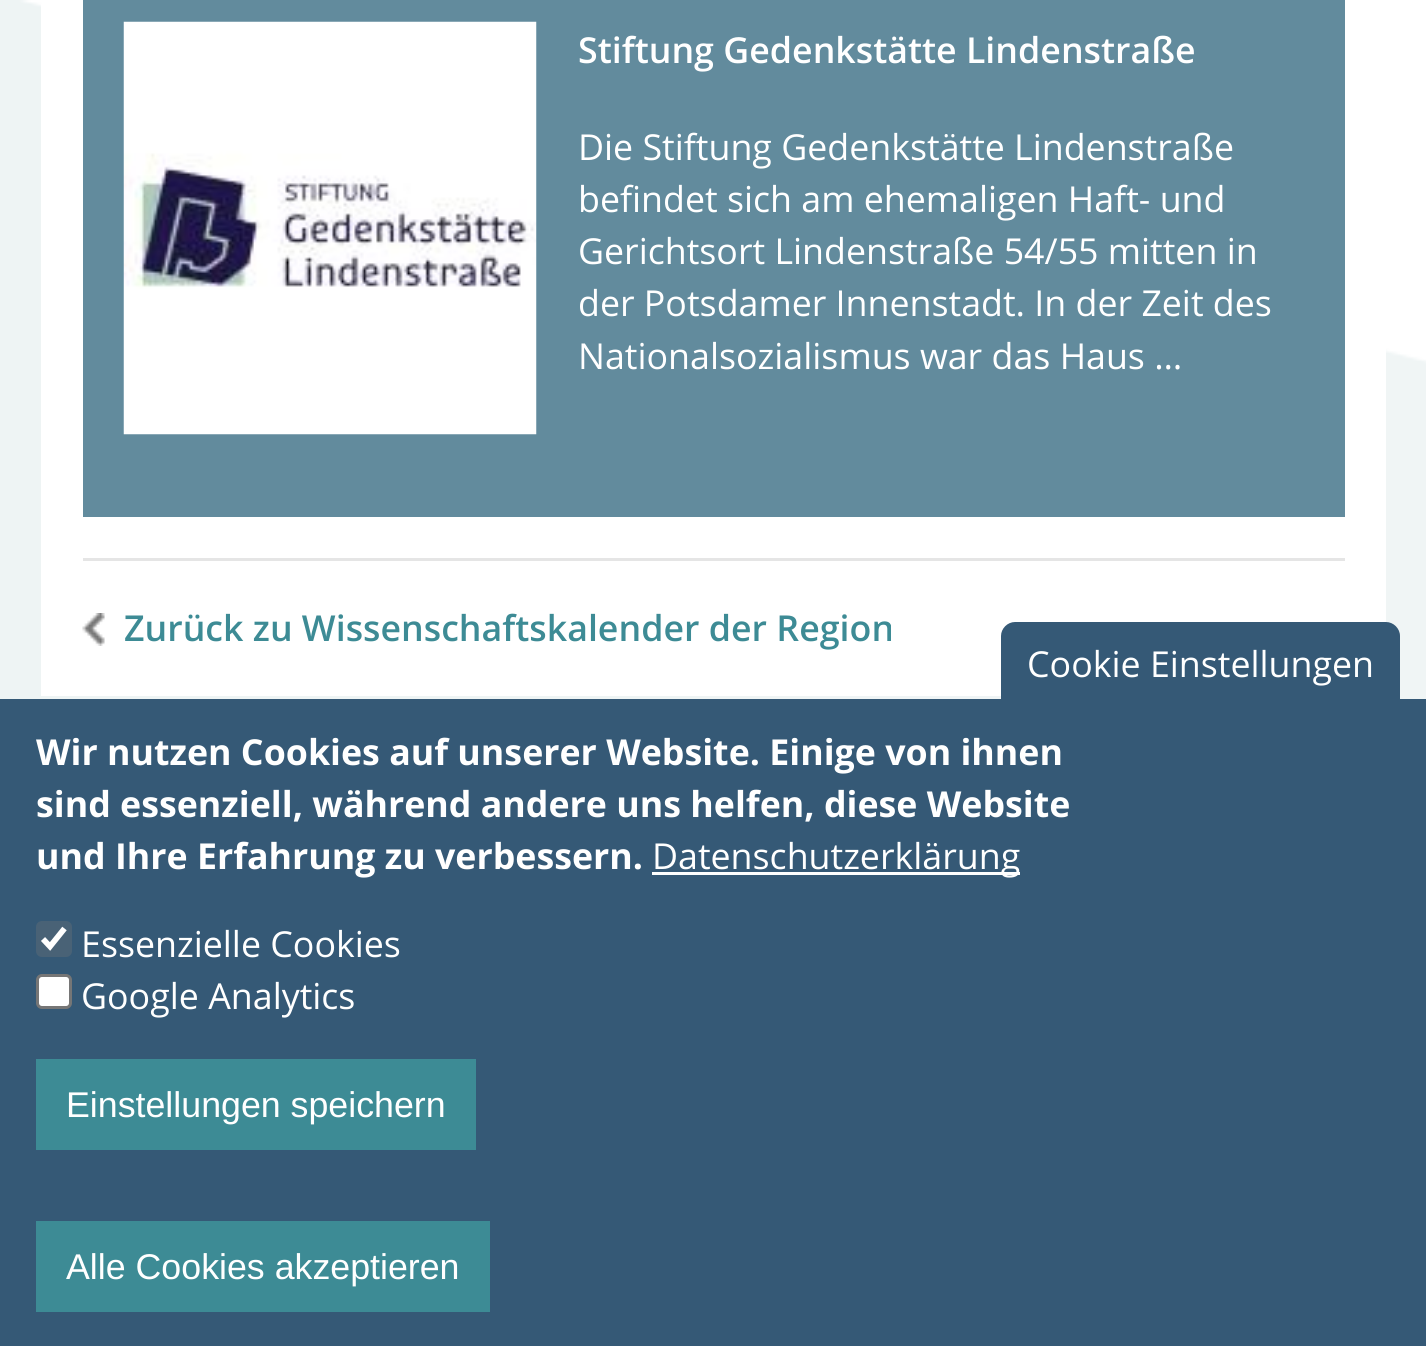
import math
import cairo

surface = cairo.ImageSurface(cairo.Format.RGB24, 1426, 1346)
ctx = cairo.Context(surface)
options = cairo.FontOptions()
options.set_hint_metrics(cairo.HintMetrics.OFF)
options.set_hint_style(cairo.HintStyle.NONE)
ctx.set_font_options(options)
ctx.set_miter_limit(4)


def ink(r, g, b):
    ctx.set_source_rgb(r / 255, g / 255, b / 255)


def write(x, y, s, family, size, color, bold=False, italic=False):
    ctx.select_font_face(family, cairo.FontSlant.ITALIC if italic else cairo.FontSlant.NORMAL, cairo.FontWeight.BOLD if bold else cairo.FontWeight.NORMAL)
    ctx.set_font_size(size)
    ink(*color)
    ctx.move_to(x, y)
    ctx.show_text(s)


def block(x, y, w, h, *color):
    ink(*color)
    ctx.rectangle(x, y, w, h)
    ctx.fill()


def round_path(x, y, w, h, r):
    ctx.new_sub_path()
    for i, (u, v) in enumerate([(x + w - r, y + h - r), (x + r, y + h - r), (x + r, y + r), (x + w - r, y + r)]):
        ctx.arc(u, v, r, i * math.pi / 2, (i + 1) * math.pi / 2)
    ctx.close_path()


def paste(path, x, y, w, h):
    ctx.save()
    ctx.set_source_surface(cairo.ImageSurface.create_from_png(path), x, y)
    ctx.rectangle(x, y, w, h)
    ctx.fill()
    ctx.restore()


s1 = dict(family="Open Sans SemiBold", size=35.75, color=(255, 255, 255))
s2 = dict(family="Open Sans", size=35.75, color=(255, 255, 255))
s3 = dict(family="Open Sans SemiBold", size=35.75, color=(61, 139, 149))
s4 = dict(family="Open Sans", size=35.75, color=(255, 255, 255), bold=True)
s5 = dict(family="Liberation Sans", size=35.75, color=(255, 255, 255))

ink(255, 255, 255)
ctx.paint()
paste("pic1.png", 0, 0, 1426, 699)
block(41, 4, 1345, 692, 255, 255, 255)
block(83, 0, 1262, 517, 98, 139, 157)
paste("pic2.png", 123, 21, 414, 414)
write(578, 63, "Stiftung Gedenkstätte Lindenstraße", **s1)
write(578, 160, "Die Stiftung Gedenkstätte Lindenstraße", **s2)
write(578, 212, "befindet sich am ehemaligen Haft- und", **s2)
write(578, 264, "Gerichtsort Lindenstraße 54/55 mitten in", **s2)
write(578, 316, "der Potsdamer Innenstadt. In der Zeit des", **s2)
write(578, 369, "Nationalsozialismus war das Haus …", **s2)
block(83, 558, 1262, 3, 229, 229, 229)
paste("pic3.png", 82, 613, 23, 33)
write(124, 641, "Zurück zu Wissenschaftskalender der Region", **s3)
block(0, 699, 1426, 647, 53, 89, 118)
ctx.new_path()
ctx.move_to(1015, 622)
ctx.line_to(1386, 622)
ctx.curve_to(1393.5, 622, 1400, 628.5, 1400, 636)
ctx.line_to(1400, 699)
ctx.line_to(1001, 699)
ctx.line_to(1001, 636)
ctx.curve_to(1001, 628.5, 1007.5, 622, 1015, 622)
ctx.close_path()
ctx.fill()
write(1027, 677, "Cookie Einstellungen", **s2)
write(36, 765, "Wir nutzen Cookies auf unserer Website. Einige von ihnen", **s4)
write(36, 817, "sind essenziell, während andere uns helfen, diese Website", **s4)
write(36, 869, "und Ihre Erfahrung zu verbessern.", **s4)
block(652, 872, 368, 3, 255, 255, 255)
write(652, 869, "Datenschutzerklärung", **s2)
ink(73, 98, 118)
round_path(36, 921, 36, 36, 6)
ctx.fill()
ctx.new_path()
ctx.move_to(43, 939)
ctx.line_to(50, 946.5)
ctx.line_to(64.5, 928.5)
ink(255, 255, 255)
ctx.set_line_width(5.7)
ctx.stroke()
write(81, 957, "Essenzielle Cookies", **s2)
round_path(37.5, 975.5, 33, 32, 4.5)
ctx.fill_preserve()
ink(118, 118, 118)
ctx.set_line_width(3)
ctx.stroke()
write(81, 1009, "Google Analytics", **s2)
block(36, 1059, 440, 91, 61, 139, 149)
write(66, 1117, "Einstellungen speichern", **s5)
block(36, 1221, 454, 91, 61, 139, 149)
write(66, 1279, "Alle Cookies akzeptieren", **s5)
surface.write_to_png("screenshot.png")
